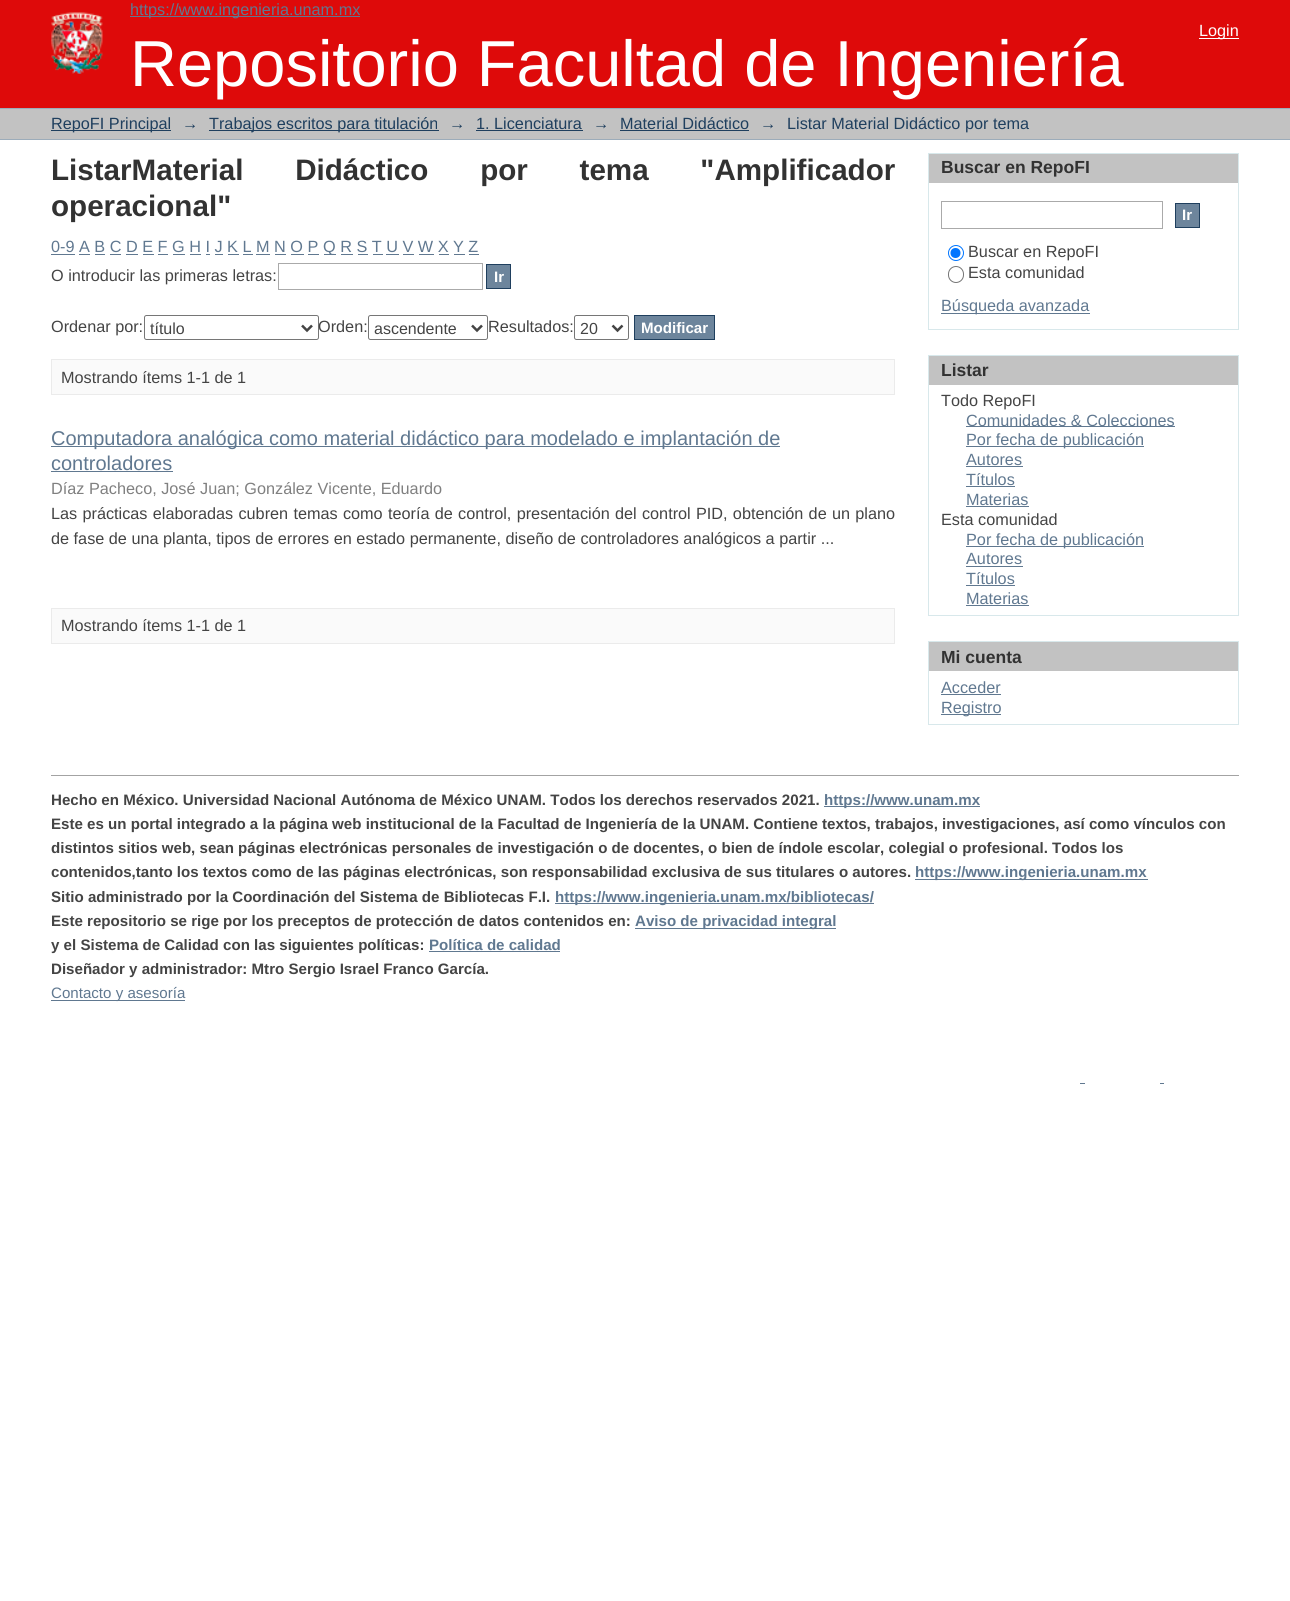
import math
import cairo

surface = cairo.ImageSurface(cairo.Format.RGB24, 1290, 1601)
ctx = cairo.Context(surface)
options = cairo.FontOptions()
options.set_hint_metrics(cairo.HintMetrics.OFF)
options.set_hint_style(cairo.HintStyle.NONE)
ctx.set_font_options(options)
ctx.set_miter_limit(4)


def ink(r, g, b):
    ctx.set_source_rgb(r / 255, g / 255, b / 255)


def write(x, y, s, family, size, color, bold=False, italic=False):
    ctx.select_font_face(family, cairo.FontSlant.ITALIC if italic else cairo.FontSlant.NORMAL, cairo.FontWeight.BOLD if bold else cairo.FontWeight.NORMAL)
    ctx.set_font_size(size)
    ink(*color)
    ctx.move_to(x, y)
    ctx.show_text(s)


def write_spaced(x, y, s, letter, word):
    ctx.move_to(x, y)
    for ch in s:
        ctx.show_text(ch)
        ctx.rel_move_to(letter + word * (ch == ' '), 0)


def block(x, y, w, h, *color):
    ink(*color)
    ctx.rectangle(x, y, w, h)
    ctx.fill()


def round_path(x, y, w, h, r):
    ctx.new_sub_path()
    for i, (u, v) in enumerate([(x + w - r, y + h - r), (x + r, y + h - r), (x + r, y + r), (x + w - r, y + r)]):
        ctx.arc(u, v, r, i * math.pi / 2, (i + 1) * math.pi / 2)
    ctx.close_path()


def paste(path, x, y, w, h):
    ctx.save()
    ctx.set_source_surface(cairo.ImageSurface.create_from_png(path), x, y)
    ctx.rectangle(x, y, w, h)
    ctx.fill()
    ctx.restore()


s1 = dict(family="Liberation Sans", size=16.25, color=(96, 120, 144))
s2 = dict(family="Liberation Sans", size=16.25, color=(255, 255, 255))
s3 = dict(family="Liberation Sans", size=65, color=(255, 255, 255))
s4 = dict(family="Liberation Sans", size=16.25, color=(31, 63, 94))
s5 = dict(family="Liberation Sans", size=29.6, color=(50, 50, 50), bold=True)
s6 = dict(family="Liberation Sans", size=16.25, color=(68, 68, 68))
s7 = dict(family="Liberation Sans", size=15.1, color=(255, 255, 255), bold=True)
s8 = dict(family="Liberation Sans", size=16, color=(68, 68, 68))
s9 = dict(family="Liberation Sans", size=20, color=(96, 120, 144))
s10 = dict(family="Liberation Sans", size=16.25, color=(128, 128, 128))
s11 = dict(family="Liberation Sans", size=17.5, color=(50, 50, 50), bold=True)
s12 = dict(family="Liberation Sans", size=15.1, color=(68, 68, 68), bold=True)
s13 = dict(family="Liberation Sans", size=15.1, color=(96, 120, 144), bold=True)
s14 = dict(family="Liberation Sans", size=15.1, color=(96, 120, 144))

ink(255, 255, 255)
ctx.paint()
block(0, 0, 1290, 108, 222, 10, 10)
block(130, 16, 230, 1, 96, 120, 144)
write(130, 15, "https://www.ingenieria.unam.mx", **s1)
block(1199, 38, 40, 1, 255, 255, 255)
write(1199, 36, "Login", **s2)
paste("pic1.png", 51, 12, 52, 62)
write(130, 86, "Repositorio Facultad de Ingeniería", **s3)
block(0, 109, 1290, 30, 194, 194, 194)
block(0, 108, 1290, 1, 156, 172, 186)
block(0, 139, 1290, 1, 156, 172, 186)
block(51, 130, 120, 1, 31, 63, 94)
write(51, 129, "RepoFI Principal", **s4)
write(182, 129, "→", **s4)
block(209, 130, 230, 1, 31, 63, 94)
write(209, 129, "Trabajos escritos para titulación", **s4)
write(449, 129, "→", **s4)
write(476, 129, "1. Licenciatura", **s4)
block(476, 130, 107, 1, 31, 63, 94)
write(593, 129, "→", **s4)
write(620, 129, "Material Didáctico", **s4)
block(620, 130, 129, 1, 31, 63, 94)
write(760, 129, "→", **s4)
write(787, 129, "Listar Material Didáctico por tema", **s4)
ctx.select_font_face("Liberation Sans", cairo.FontSlant.NORMAL, cairo.FontWeight.BOLD)
ctx.set_font_size(29.6)
ink(50, 50, 50)
write_spaced(51, 180, "ListarMaterial Didáctico por tema \"Amplificador", 0, 43.5)
write(51, 216, "operacional\"", **s5)
write(51, 252, "0-9 A B C D E F G H I J K L M N O P", **s1)
block(51, 254, 24, 1, 96, 120, 144)
block(324, 254, 12, 1, 96, 120, 144)
write(323, 252, "Q R S T U V W X Y Z", **s1)
block(79, 254, 11, 1, 96, 120, 144)
block(95, 254, 10, 1, 96, 120, 144)
block(110, 254, 11, 1, 96, 120, 144)
block(126, 254, 12, 1, 96, 120, 144)
block(143, 254, 11, 1, 96, 120, 144)
block(158, 254, 10, 1, 96, 120, 144)
block(173, 254, 12, 1, 96, 120, 144)
block(190, 254, 11, 1, 96, 120, 144)
block(206, 254, 4, 1, 96, 120, 144)
block(215, 254, 8, 1, 96, 120, 144)
block(228, 254, 11, 1, 96, 120, 144)
block(243, 254, 10, 1, 96, 120, 144)
block(256, 254, 14, 1, 96, 120, 144)
block(275, 254, 11, 1, 96, 120, 144)
block(291, 254, 13, 1, 96, 120, 144)
block(308, 254, 11, 1, 96, 120, 144)
block(341, 254, 12, 1, 96, 120, 144)
block(358, 254, 10, 1, 96, 120, 144)
block(373, 254, 10, 1, 96, 120, 144)
block(386, 254, 13, 1, 96, 120, 144)
block(403, 254, 11, 1, 96, 120, 144)
block(419, 254, 15, 1, 96, 120, 144)
block(439, 254, 10, 1, 96, 120, 144)
block(454, 254, 11, 1, 96, 120, 144)
block(469, 254, 10, 1, 96, 120, 144)
write(51, 281, "O introducir las primeras letras:", **s6)
ctx.rectangle(278.5, 263.5, 204, 26)
ink(170, 170, 170)
ctx.set_line_width(1)
ctx.stroke()
ink(109, 133, 156)
ctx.rectangle(486.5, 264.5, 24, 24)
ctx.fill_preserve()
ink(31, 63, 94)
ctx.stroke()
write(494, 282, "Ir", **s7)
write(51, 332, "Ordenar por:", **s6)
round_path(144.5, 315.5, 174, 24, 2)
ink(118, 118, 118)
ctx.stroke()
ctx.new_path()
ctx.move_to(302, 325.5)
ctx.line_to(307, 330.5)
ctx.line_to(312, 325.5)
ink(68, 68, 68)
ctx.set_line_width(2.5)
ctx.stroke()
write(150, 334, "título", **s8)
write(318, 332, "Orden:", **s6)
round_path(368.5, 315.5, 119, 24, 2)
ink(118, 118, 118)
ctx.set_line_width(1)
ctx.stroke()
ctx.new_path()
ctx.move_to(472, 325.5)
ctx.line_to(477, 330.5)
ctx.line_to(482, 325.5)
ink(68, 68, 68)
ctx.set_line_width(2.5)
ctx.stroke()
write(374, 334, "ascendente", **s8)
write(488, 332, "Resultados:", **s6)
round_path(574.5, 315.5, 54, 24, 2)
ink(118, 118, 118)
ctx.set_line_width(1)
ctx.stroke()
ctx.new_path()
ctx.move_to(612.5, 325.5)
ctx.line_to(617.5, 330.5)
ctx.line_to(622.5, 325.5)
ink(68, 68, 68)
ctx.set_line_width(2.5)
ctx.stroke()
write(580, 334, "20", **s8)
ink(109, 133, 156)
ctx.rectangle(634.5, 315.5, 80, 24)
ctx.fill_preserve()
ink(31, 63, 94)
ctx.set_line_width(1)
ctx.stroke()
write(641, 333, "Modificar", **s7)
ink(250, 250, 250)
ctx.rectangle(51.5, 359.5, 843, 35)
ctx.fill_preserve()
ink(235, 235, 235)
ctx.stroke()
write(61, 383, "Mostrando ítems 1-1 de 1", **s6)
block(51, 446, 729, 1, 96, 120, 144)
write(51, 445, "Computadora analógica como material didáctico para modelado e implantación de", **s9)
write(51, 470, "controladores", **s9)
block(51, 471, 122, 1, 96, 120, 144)
write(51, 494, "Díaz Pacheco, José Juan; González Vicente, Eduardo", **s10)
ink(68, 68, 68)
write_spaced(51, 519, "Las prácticas elaboradas cubren temas como teoría de control, presentación del control PID, obtención de un plano", 0, 0.75)
write(51, 544, "de fase de una planta, tipos de errores en estado permanente, diseño de controladores analógicos a partir ...", **s6)
ink(250, 250, 250)
ctx.rectangle(51.5, 608.5, 843, 35)
ctx.fill_preserve()
ink(235, 235, 235)
ctx.stroke()
write(61, 631, "Mostrando ítems 1-1 de 1", **s6)
block(929, 154, 309, 29, 194, 194, 194)
block(928, 153, 311, 1, 216, 232, 235)
block(1238, 153, 1, 177, 216, 232, 235)
block(928, 153, 1, 30, 216, 232, 235)
write(941, 173, "Buscar en RepoFI", **s11)
block(928, 329, 311, 1, 216, 232, 235)
block(928, 183, 1, 147, 216, 232, 235)
ctx.rectangle(941.5, 201.5, 221, 27)
ink(170, 170, 170)
ctx.stroke()
ink(109, 133, 156)
ctx.rectangle(1175.5, 203.5, 24, 24)
ctx.fill_preserve()
ink(31, 63, 94)
ctx.stroke()
write(1182, 220, "Ir", **s7)
ctx.new_path()
ctx.arc(956, 253, 7.5, 0, 2 * math.pi)
ink(0, 117, 255)
ctx.stroke()
ctx.arc(955.5, 253, 5, 0, 2 * math.pi)
ctx.fill()
write(968, 257, "Buscar en RepoFI", **s6)
round_path(948.5, 266.5, 15, 16, 7.5)
ink(118, 118, 118)
ctx.stroke()
write(968, 278, "Esta comunidad", **s6)
block(941, 313, 149, 1, 96, 120, 144)
write(941, 311, "Búsqueda avanzada", **s1)
block(929, 356, 309, 29, 194, 194, 194)
block(928, 355, 311, 1, 216, 232, 235)
block(1238, 355, 1, 261, 216, 232, 235)
block(928, 355, 1, 30, 216, 232, 235)
write(941, 376, "Listar", **s11)
block(928, 615, 311, 1, 216, 232, 235)
block(928, 385, 1, 231, 216, 232, 235)
write(941, 406, "Todo RepoFI", **s6)
block(966, 426, 209, 1, 96, 120, 144)
write(966, 426, "Comunidades & Colecciones", **s1)
block(966, 446, 178, 1, 96, 120, 144)
write(966, 445, "Por fecha de publicación", **s1)
write(966, 465, "Autores", **s1)
block(966, 466, 57, 1, 96, 120, 144)
write(966, 485, "Títulos", **s1)
block(966, 486, 49, 1, 96, 120, 144)
write(966, 505, "Materias", **s1)
block(966, 506, 63, 1, 96, 120, 144)
write(941, 525, "Esta comunidad", **s6)
block(966, 546, 178, 1, 96, 120, 144)
write(966, 545, "Por fecha de publicación", **s1)
write(966, 564, "Autores", **s1)
block(966, 566, 57, 1, 96, 120, 144)
write(966, 584, "Títulos", **s1)
block(966, 585, 49, 1, 96, 120, 144)
write(966, 604, "Materias", **s1)
block(966, 605, 63, 1, 96, 120, 144)
block(929, 642, 309, 29, 194, 194, 194)
block(928, 641, 311, 1, 216, 232, 235)
block(1238, 641, 1, 84, 216, 232, 235)
block(928, 641, 1, 30, 216, 232, 235)
write(941, 663, "Mi cuenta", **s11)
block(928, 724, 311, 1, 216, 232, 235)
block(928, 671, 1, 54, 216, 232, 235)
write(941, 693, "Acceder", **s1)
block(941, 694, 60, 1, 96, 120, 144)
block(941, 714, 60, 1, 96, 120, 144)
write(941, 713, "Registro", **s1)
block(51, 775, 1188, 1, 163, 163, 163)
write(51, 805, "Hecho en México. Universidad Nacional Autónoma de México UNAM. Todos los derechos reservados 2021.", **s12)
block(824, 806, 156, 1, 96, 120, 144)
write(824, 805, "https://www.unam.mx", **s13)
write(51, 829, "Este es un portal integrado a la página web institucional de la Facultad de Ingeniería de la UNAM. Contiene textos, trabajos, investigaciones, así como vínculos con", **s12)
write(51, 853, "distintos sitios web, sean páginas electrónicas personales de investigación o de docentes, o bien de índole escolar, colegial o profesional. Todos los", **s12)
write(51, 877, "contenidos,tanto los textos como de las páginas electrónicas, son responsabilidad exclusiva de sus titulares o autores.", **s12)
block(915, 879, 233, 1, 96, 120, 144)
write(915, 877, "https://www.ingenieria.unam.mx", **s13)
write(51, 902, "Sitio administrado por la Coordinación del Sistema de Bibliotecas F.I.", **s12)
block(555, 903, 319, 1, 96, 120, 144)
write(555, 902, "https://www.ingenieria.unam.mx/bibliotecas/", **s13)
write(51, 926, "Este repositorio se rige por los preceptos de protección de datos contenidos en:", **s12)
block(635, 928, 201, 1, 96, 120, 144)
write(635, 926, "Aviso de privacidad integral", **s13)
write(51, 950, "y el Sistema de Calidad con las siguientes políticas:", **s12)
write(429, 950, "Política de calidad", **s13)
block(429, 951, 131, 1, 96, 120, 144)
write(51, 974, "Diseñador y administrador: Mtro Sergio Israel Franco García.", **s12)
block(51, 1000, 134, 1, 96, 120, 144)
write(51, 998, "Contacto y asesoría", **s14)
block(1080, 1083, 5, 1, 96, 120, 144)
block(1160, 1083, 4, 1, 96, 120, 144)
surface.write_to_png("screenshot.png")
